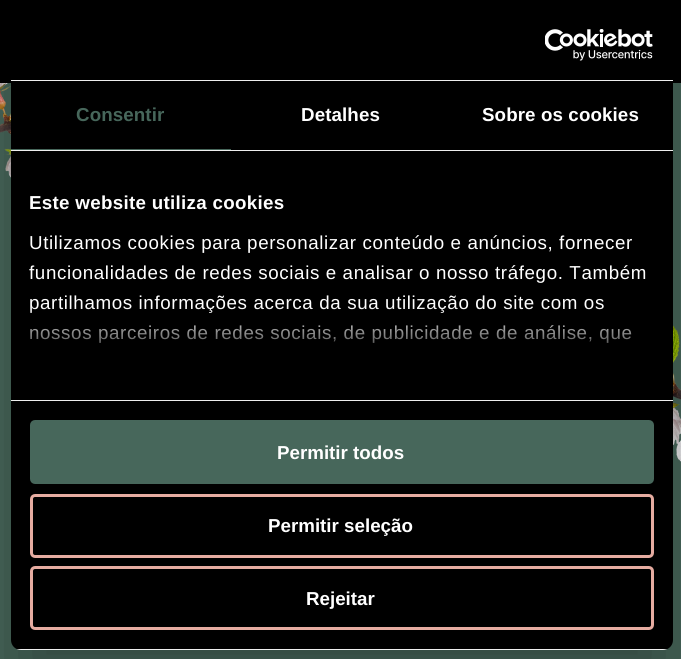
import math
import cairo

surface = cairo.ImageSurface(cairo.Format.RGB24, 681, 659)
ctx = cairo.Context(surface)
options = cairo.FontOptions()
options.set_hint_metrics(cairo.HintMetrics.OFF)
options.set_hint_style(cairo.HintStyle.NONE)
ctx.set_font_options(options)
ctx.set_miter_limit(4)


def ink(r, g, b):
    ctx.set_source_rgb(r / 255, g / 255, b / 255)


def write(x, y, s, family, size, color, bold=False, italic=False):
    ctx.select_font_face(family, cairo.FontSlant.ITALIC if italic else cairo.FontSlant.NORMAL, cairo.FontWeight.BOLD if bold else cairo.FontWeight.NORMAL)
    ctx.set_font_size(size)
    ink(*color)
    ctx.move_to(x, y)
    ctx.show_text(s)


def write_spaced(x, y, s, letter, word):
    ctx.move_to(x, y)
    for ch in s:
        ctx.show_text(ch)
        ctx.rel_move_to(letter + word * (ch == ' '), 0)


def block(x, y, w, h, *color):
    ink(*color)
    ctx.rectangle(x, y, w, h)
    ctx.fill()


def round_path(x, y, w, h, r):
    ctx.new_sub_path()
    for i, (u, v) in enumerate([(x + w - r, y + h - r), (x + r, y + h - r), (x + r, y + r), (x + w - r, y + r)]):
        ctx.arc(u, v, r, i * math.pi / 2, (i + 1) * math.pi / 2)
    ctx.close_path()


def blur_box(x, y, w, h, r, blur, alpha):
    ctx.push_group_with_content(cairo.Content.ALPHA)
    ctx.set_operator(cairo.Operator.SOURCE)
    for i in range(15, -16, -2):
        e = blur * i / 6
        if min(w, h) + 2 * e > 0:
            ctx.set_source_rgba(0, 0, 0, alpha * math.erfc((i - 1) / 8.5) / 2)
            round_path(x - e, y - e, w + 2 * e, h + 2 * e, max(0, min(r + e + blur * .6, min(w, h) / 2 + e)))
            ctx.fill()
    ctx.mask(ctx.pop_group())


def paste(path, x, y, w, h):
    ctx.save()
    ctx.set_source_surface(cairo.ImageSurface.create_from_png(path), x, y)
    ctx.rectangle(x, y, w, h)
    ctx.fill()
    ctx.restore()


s1 = dict(family="Liberation Sans", size=18.75, color=(255, 255, 255), bold=True)

ink(255, 255, 255)
ctx.paint()
block(0, 0, 681, 83, 0, 0, 0)
paste("pic1.png", 0, 83, 681, 576)
ink(0, 0, 0)
blur_box(11, 50, 662, 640, 10, 42.5, 0.3)
ink(0, 0, 0)
round_path(11, 10, 662, 640, 10)
ctx.fill()
block(11, 80, 662, 1, 238, 238, 238)
paste("pic2.png", 545, 29, 108, 32)
block(11, 150, 662, 1, 238, 238, 238)
block(11, 149, 220, 1, 71, 103, 91)
ctx.select_font_face("Liberation Sans", cairo.FontSlant.NORMAL, cairo.FontWeight.BOLD)
ctx.set_font_size(18.75)
write_spaced(76, 121, "Consentir", 0.1, 0)
ink(255, 255, 255)
write_spaced(301, 121, "Detalhes", 0.1, 0)
write_spaced(482, 121, "Sobre os cookies", 0.1, 0)
block(11, 400, 662, 1, 238, 238, 238)
ink(255, 255, 255)
write_spaced(29, 209, "Este website utiliza cookies", 0.3, 0)
ctx.select_font_face("Liberation Sans")
write_spaced(29, 249, "Utilizamos cookies para personalizar conteúdo e anúncios, fornecer", 0.62, 0)
write_spaced(29, 279, "funcionalidades de redes sociais e analisar o nosso tráfego. Também", 0.62, 0)
write_spaced(29, 309, "partilhamos informações acerca da sua utilização do site com os", 0.62, 0)
write_spaced(29, 339, "nossos parceiros de redes sociais, de publicidade e de análise, que", 0.62, 0)
gradient = cairo.LinearGradient(333, 400, 333, 306)
gradient.add_color_stop_rgba(0, 0, 0, 0, 1)
gradient.add_color_stop_rgba(0.5, 0, 0, 0, 0.8)
gradient.add_color_stop_rgba(1, 0, 0, 0, 0)
ctx.set_source(gradient)
ctx.rectangle(30, 307, 601, 36)
ctx.fill()
ctx.save()
round_path(11, 10, 662, 640, 10)
ctx.clip()
block(11, 649, 662, 1, 238, 238, 238)
ctx.restore()
ink(71, 103, 91)
round_path(31.5, 421.5, 621, 61, 3.5)
ctx.fill_preserve()
ctx.set_line_width(3)
ctx.stroke()
write(277, 459, "Permitir todos", **s1)
round_path(31.5, 495.5, 621, 61, 3.5)
ink(230, 172, 161)
ctx.stroke()
write(268, 532, "Permitir seleção", **s1)
round_path(31.5, 567.5, 621, 61, 3.5)
ink(230, 172, 161)
ctx.stroke()
write(306, 605, "Rejeitar", **s1)
surface.write_to_png("screenshot.png")
